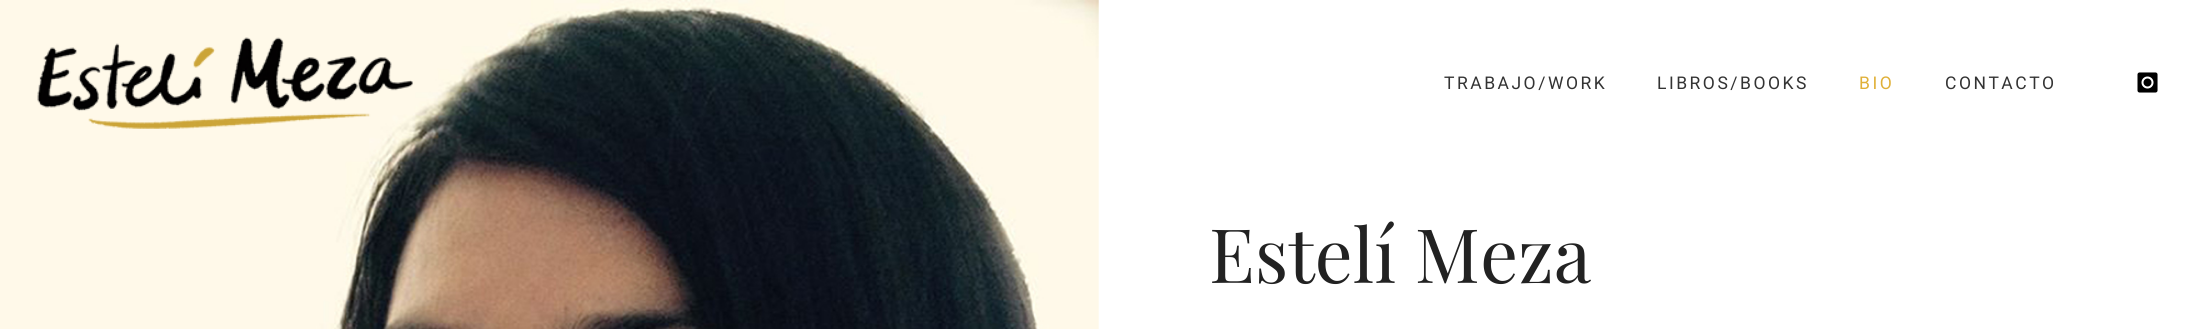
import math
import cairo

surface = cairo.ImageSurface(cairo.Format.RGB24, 2197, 329)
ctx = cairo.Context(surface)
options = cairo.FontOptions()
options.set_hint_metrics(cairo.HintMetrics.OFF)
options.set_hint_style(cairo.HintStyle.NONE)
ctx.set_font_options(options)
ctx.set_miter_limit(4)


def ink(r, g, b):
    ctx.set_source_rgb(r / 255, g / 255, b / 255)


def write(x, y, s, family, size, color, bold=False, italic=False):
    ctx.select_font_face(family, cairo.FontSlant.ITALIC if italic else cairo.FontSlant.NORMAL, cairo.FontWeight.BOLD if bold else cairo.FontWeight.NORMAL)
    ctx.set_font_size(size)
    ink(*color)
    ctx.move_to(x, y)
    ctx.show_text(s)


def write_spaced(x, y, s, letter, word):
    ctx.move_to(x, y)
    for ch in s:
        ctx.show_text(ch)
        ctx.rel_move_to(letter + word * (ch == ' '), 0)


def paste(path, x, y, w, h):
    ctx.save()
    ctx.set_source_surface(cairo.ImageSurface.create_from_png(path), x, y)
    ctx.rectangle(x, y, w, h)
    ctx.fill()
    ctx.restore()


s1 = dict(family="Playfair Display", size=75, color=(34, 34, 34))

ink(255, 255, 255)
ctx.paint()
paste("pic1.png", 0, 0, 1099, 329)
paste("pic2.png", 37, 37, 376, 92)
ctx.select_font_face("Roboto")
ctx.set_font_size(17.5)
ink(51, 51, 51)
write_spaced(1444, 89, "TRABAJO/WORK", 2.5, 0)
write_spaced(1657, 89, "LIBROS/BOOKS", 2.5, 0)
ink(224, 176, 56)
write_spaced(1859, 89, "BIO", 2.5, 0)
ink(51, 51, 51)
write_spaced(1945, 89, "CONTACTO", 2.5, 0)
paste("pic3.png", 2137, 72, 21, 21)
write(1209, 283, "Estelí Meza", **s1)
surface.write_to_png("screenshot.png")
